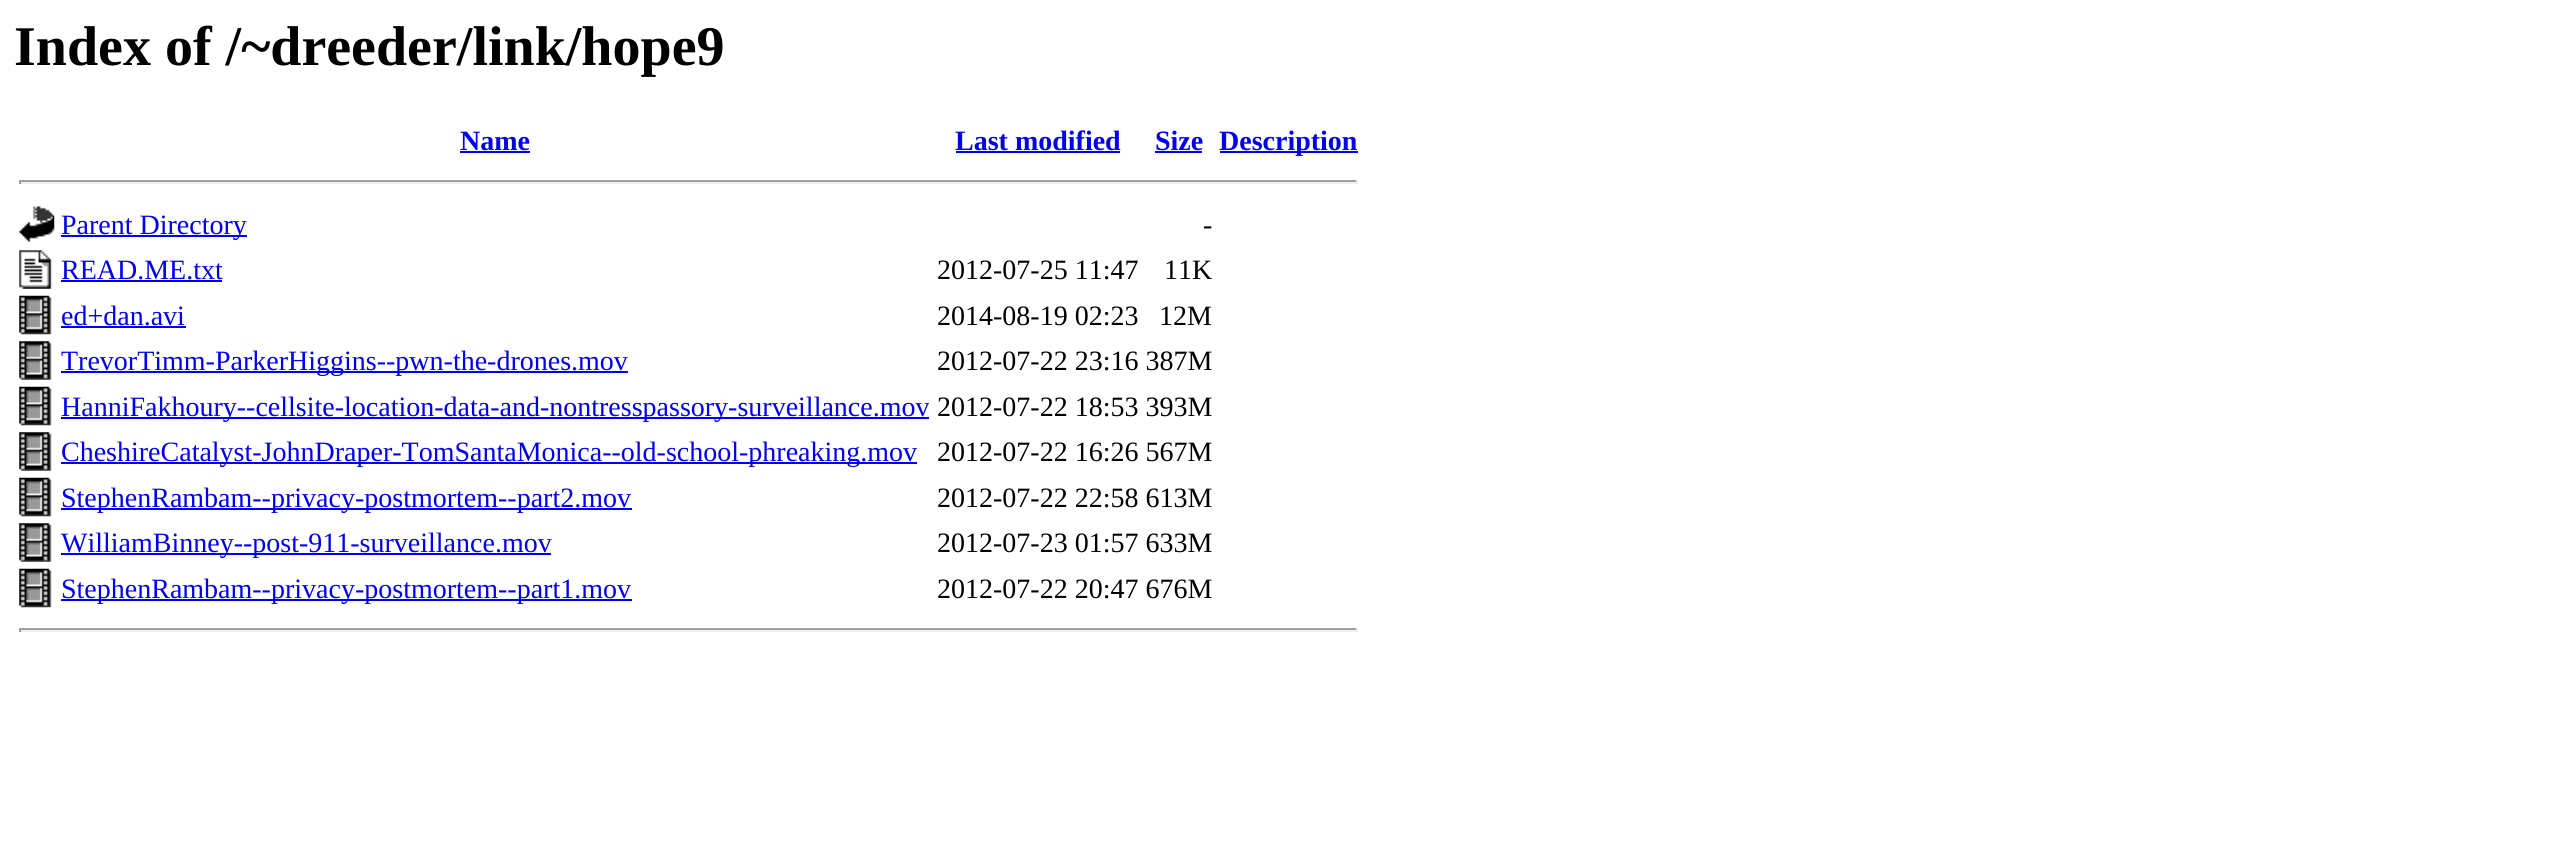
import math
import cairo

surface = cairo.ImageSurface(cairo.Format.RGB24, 2559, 849)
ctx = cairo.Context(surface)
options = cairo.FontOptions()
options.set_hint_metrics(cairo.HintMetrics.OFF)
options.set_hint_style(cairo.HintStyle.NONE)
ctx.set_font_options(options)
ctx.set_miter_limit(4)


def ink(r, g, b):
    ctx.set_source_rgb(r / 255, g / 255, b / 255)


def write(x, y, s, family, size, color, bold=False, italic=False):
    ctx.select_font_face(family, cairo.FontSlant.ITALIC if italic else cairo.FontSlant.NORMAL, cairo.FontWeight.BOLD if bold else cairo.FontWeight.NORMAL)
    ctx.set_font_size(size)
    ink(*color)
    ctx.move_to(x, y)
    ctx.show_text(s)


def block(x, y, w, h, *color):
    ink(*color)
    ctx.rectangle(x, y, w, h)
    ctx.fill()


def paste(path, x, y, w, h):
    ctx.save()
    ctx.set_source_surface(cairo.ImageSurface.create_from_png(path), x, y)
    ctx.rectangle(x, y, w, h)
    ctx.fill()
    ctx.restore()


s1 = dict(family="Liberation Serif", size=56, color=(0, 0, 0), bold=True)
s2 = dict(family="Liberation Serif", size=28, color=(0, 0, 238), bold=True)
s3 = dict(family="Liberation Serif", size=28, color=(0, 0, 238))
s4 = dict(family="Liberation Serif", size=28, color=(0, 0, 0))

ink(255, 255, 255)
ctx.paint()
write(14, 65, "Index of /~dreeder/link/hope9", **s1)
write(460, 150, "Name", **s2)
block(460, 151, 70, 2, 0, 0, 238)
write(955, 150, "Last modified", **s2)
block(956, 151, 164, 2, 0, 0, 238)
write(1155, 150, "Size", **s2)
block(1155, 151, 47, 2, 0, 0, 238)
block(1220, 151, 138, 2, 0, 0, 238)
write(1219, 150, "Description", **s2)
block(19, 180, 1339, 2, 159, 159, 159)
block(1356, 180, 2, 4, 238, 238, 238)
block(19, 182, 1339, 2, 238, 238, 238)
block(19, 180, 2, 4, 159, 159, 159)
paste("pic1.png", 19, 206, 36, 36)
block(61, 235, 186, 2, 0, 0, 238)
write(61, 234, "Parent Directory", **s3)
write(1203, 234, "-", **s4)
paste("pic2.png", 19, 250, 33, 39)
write(61, 279, "READ.ME.txt", **s3)
block(61, 280, 161, 2, 0, 0, 238)
write(937, 279, "2012-07-25 11:47", **s4)
write(1164, 279, "11K", **s4)
paste("pic3.png", 19, 295, 33, 40)
write(61, 325, "ed+dan.avi", **s3)
block(61, 326, 125, 2, 0, 0, 238)
write(937, 325, "2014-08-19 02:23", **s4)
write(1159, 325, "12M", **s4)
paste("pic4.png", 19, 341, 33, 39)
block(61, 371, 567, 2, 0, 0, 238)
write(61, 370, "TrevorTimm-ParkerHiggins--pwn-the-drones.mov", **s3)
write(937, 370, "2012-07-22 23:16 387M", **s4)
paste("pic3.png", 19, 386, 33, 40)
block(61, 417, 868, 2, 0, 0, 238)
write(61, 416, "HanniFakhoury--cellsite-location-data-and-nontresspassory-surveillance.mov", **s3)
write(937, 416, "2012-07-22 18:53 393M", **s4)
paste("pic4.png", 19, 432, 33, 39)
block(61, 462, 856, 2, 0, 0, 238)
write(61, 461, "CheshireCatalyst-JohnDraper-TomSantaMonica--old-school-phreaking.mov", **s3)
write(937, 461, "2012-07-22 16:26 567M", **s4)
paste("pic3.png", 19, 477, 33, 40)
block(61, 508, 571, 2, 0, 0, 238)
write(61, 507, "StephenRambam--privacy-postmortem--part2.mov", **s3)
write(937, 507, "2012-07-22 22:58 613M", **s4)
paste("pic4.png", 19, 523, 33, 39)
block(61, 553, 490, 2, 0, 0, 238)
write(61, 552, "WilliamBinney--post-911-surveillance.mov", **s3)
write(937, 552, "2012-07-23 01:57 633M", **s4)
paste("pic3.png", 19, 568, 33, 40)
block(61, 599, 571, 2, 0, 0, 238)
write(61, 598, "StephenRambam--privacy-postmortem--part1.mov", **s3)
write(937, 598, "2012-07-22 20:47 676M", **s4)
block(19, 628, 1339, 2, 159, 159, 159)
block(1356, 628, 2, 4, 238, 238, 238)
block(19, 630, 1339, 2, 238, 238, 238)
block(19, 628, 2, 4, 159, 159, 159)
surface.write_to_png("screenshot.png")
